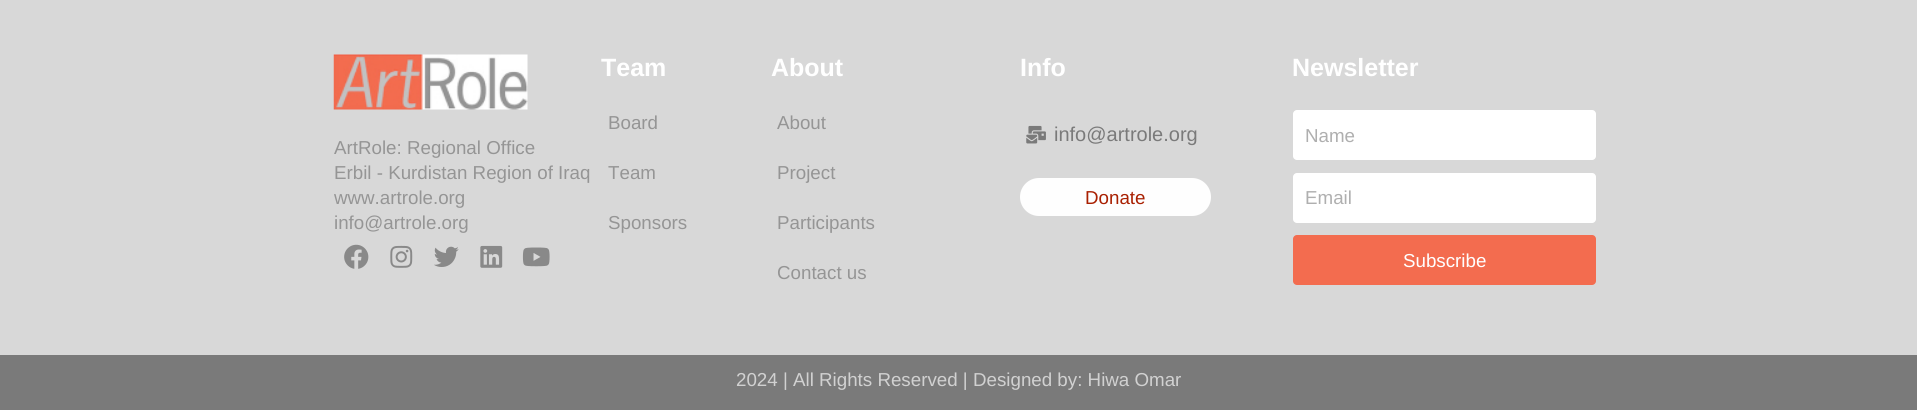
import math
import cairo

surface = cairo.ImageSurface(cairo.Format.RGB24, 1917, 410)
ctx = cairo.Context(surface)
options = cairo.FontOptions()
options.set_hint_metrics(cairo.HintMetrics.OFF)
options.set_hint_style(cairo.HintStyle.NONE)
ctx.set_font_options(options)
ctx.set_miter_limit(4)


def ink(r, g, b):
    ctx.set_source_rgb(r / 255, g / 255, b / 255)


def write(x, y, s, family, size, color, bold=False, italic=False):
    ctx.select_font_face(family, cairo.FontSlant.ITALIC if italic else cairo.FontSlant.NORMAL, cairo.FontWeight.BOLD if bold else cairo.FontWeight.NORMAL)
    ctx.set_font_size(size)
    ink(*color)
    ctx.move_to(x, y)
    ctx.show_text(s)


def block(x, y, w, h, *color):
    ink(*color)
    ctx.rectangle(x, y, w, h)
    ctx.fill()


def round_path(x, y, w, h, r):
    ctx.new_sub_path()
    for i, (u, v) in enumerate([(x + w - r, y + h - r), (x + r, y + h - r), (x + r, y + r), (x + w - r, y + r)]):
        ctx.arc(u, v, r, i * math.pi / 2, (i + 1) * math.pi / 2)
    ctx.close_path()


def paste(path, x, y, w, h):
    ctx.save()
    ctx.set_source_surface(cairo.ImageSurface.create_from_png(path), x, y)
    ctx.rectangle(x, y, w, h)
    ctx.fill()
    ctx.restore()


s1 = dict(family="Liberation Sans", size=18.75, color=(149, 149, 149))
s2 = dict(family="Liberation Sans", size=25, color=(255, 255, 255), bold=True)
s3 = dict(family="Liberation Sans", size=20, color=(122, 122, 122))
s4 = dict(family="Liberation Sans", size=18.75, color=(169, 32, 2))
s5 = dict(family="Liberation Sans", size=18.75, color=(175, 175, 175))
s6 = dict(family="Liberation Sans", size=18.75, color=(255, 255, 255))
s7 = dict(family="Liberation Sans", size=18.75, color=(209, 209, 209))

ink(216, 216, 216)
ctx.paint()
paste("pic1.png", 333, 54, 195, 56)
write(334, 154, "ArtRole: Regional Office", **s1)
write(334, 179, "Erbil - Kurdistan Region of Iraq", **s1)
write(334, 204, "www.artrole.org", **s1)
write(334, 229, "info@artrole.org", **s1)
paste("pic2.png", 344, 244, 25, 25)
paste("pic3.png", 390, 245, 23, 23)
paste("pic4.png", 434, 246, 25, 21)
paste("pic5.png", 480, 245, 23, 23)
paste("pic6.png", 522, 247, 28, 20)
write(601, 76, "Team", **s2)
write(608, 129, "Board", **s1)
write(608, 179, "Team", **s1)
write(608, 229, "Sponsors", **s1)
write(771, 76, "About", **s2)
write(777, 129, "About", **s1)
write(777, 179, "Project", **s1)
write(777, 229, "Participants", **s1)
write(777, 279, "Contact us", **s1)
write(1020, 76, "Info", **s2)
paste("pic7.png", 1026, 125, 20, 19)
write(1054, 141, "info@artrole.org", **s3)
ink(254, 254, 254)
round_path(1020, 178, 191, 38, 19)
ctx.fill()
write(1085, 204, "Donate", **s4)
write(1292, 76, "Newsletter", **s2)
round_path(1293, 110, 303, 50, 4)
ctx.fill()
write(1305, 142, "Name", **s5)
ink(255, 255, 255)
round_path(1293, 173, 303, 50, 4)
ctx.fill()
write(1305, 204, "Email", **s5)
ink(243, 108, 79)
round_path(1293, 235, 303, 50, 4)
ctx.fill()
write(1403, 267, "Subscribe", **s6)
block(0, 355, 1917, 55, 122, 122, 122)
write(736, 386, "2024 | All Rights Reserved | Designed by: Hiwa Omar", **s7)
surface.write_to_png("screenshot.png")
